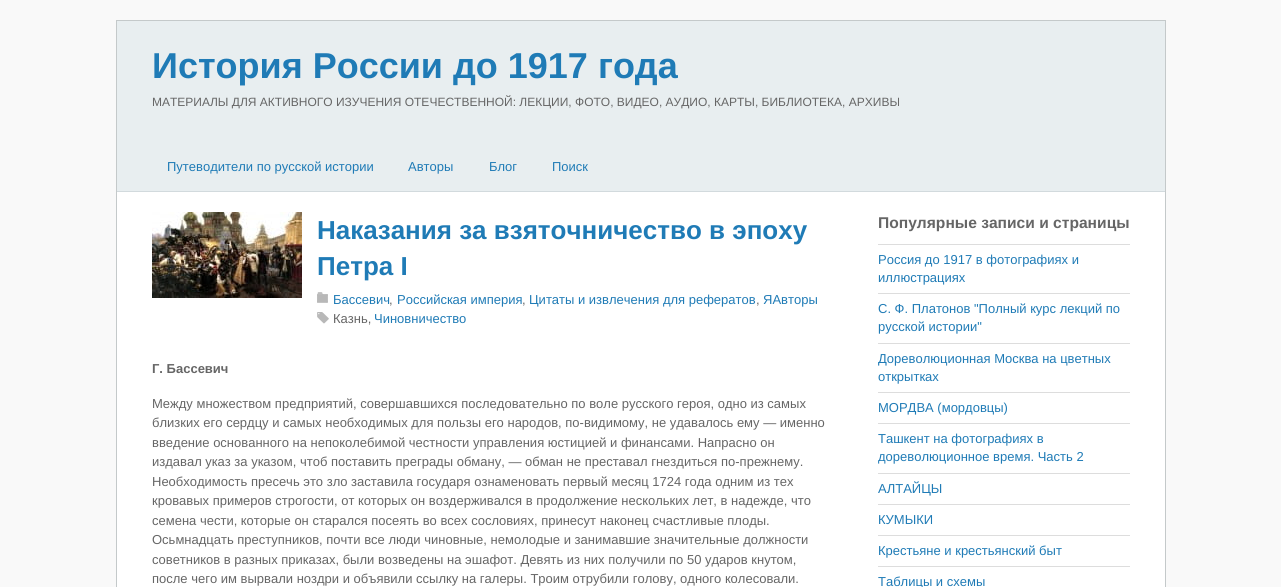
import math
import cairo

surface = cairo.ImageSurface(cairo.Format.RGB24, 1281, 587)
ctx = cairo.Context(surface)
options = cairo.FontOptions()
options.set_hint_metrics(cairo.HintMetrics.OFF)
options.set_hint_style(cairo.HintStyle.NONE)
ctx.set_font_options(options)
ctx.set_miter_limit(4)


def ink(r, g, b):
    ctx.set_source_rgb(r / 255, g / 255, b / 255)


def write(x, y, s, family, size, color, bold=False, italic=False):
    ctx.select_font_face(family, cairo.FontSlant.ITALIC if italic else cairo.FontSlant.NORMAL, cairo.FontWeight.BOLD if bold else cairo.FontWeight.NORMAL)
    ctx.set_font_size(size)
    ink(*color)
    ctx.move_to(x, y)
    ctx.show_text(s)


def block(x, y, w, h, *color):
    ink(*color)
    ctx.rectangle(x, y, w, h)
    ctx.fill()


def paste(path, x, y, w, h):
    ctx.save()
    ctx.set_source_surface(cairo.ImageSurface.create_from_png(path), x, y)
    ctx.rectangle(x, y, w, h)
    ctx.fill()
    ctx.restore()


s1 = dict(family="Liberation Sans", size=36, color=(31, 123, 182), bold=True)
s2 = dict(family="Liberation Sans", size=12, color=(102, 102, 102))
s3 = dict(family="Liberation Sans", size=13, color=(31, 123, 182))
s4 = dict(family="Liberation Sans", size=26, color=(31, 123, 182), bold=True)
s5 = dict(family="Liberation Sans", size=13, color=(102, 102, 102))
s6 = dict(family="Liberation Sans", size=13, color=(102, 102, 102), bold=True)
s7 = dict(family="Liberation Sans", size=15.6, color=(102, 102, 102), bold=True)

ink(249, 249, 249)
ctx.paint()
ctx.rectangle(116.5, 20.5, 1049, 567)
ink(196, 201, 202)
ctx.set_line_width(1)
ctx.stroke()
block(117, 21, 1048, 170, 232, 238, 240)
block(117, 191, 1048, 1, 210, 218, 221)
write(152, 78, "История России до 1917 года", **s1)
write(152, 106, "МАТЕРИАЛЫ ДЛЯ АКТИВНОГО ИЗУЧЕНИЯ ОТЕЧЕСТВЕННОЙ: ЛЕКЦИИ, ФОТО, ВИДЕО, АУДИО, КАРТЫ, БИБЛИОТЕКА, АРХИВЫ", **s2)
write(167, 171, "Путеводители по русской истории", **s3)
write(408, 171, "Авторы", **s3)
write(489, 171, "Блог", **s3)
write(552, 171, "Поиск", **s3)
block(117, 192, 1048, 395, 255, 255, 255)
paste("pic1.png", 152, 212, 150, 86)
write(317, 239, "Наказания за взяточничество в эпоху", **s4)
write(317, 275, "Петра I", **s4)
paste("pic2.png", 317, 292, 11, 11)
write(333, 304, "Бассевич", **s3)
write(389, 304, ",", **s5)
write(397, 304, "Российская империя", **s3)
write(522, 304, ",", **s5)
write(529, 304, "Цитаты и извлечения для рефератов", **s3)
write(756, 304, ",", **s5)
write(763, 304, "ЯАвторы", **s3)
paste("pic3.png", 317, 312, 12, 12)
write(333, 323, "Казнь,", **s5)
write(374, 323, "Чиновничество", **s3)
write(152, 373, "Г. Бассевич", **s6)
write(152, 408, "Между множеством предприятий, совершавшихся последовательно по воле русского героя, одно из самых", **s5)
write(152, 427, "близких его сердцу и самых необходимых для пользы его народов, по-видимому, не удавалось ему — именно", **s5)
write(152, 447, "введение основанного на непоколебимой честности управления юстицией и финансами. Напрасно он", **s5)
write(152, 466, "издавал указ за указом, чтоб поставить преграды обману, — обман не преставал гнездиться по-прежнему.", **s5)
write(152, 486, "Необходимость пресечь это зло заставила государя ознаменовать первый месяц 1724 года одним из тех", **s5)
write(152, 505, "кровавых примеров строгости, от которых он воздерживался в продолжение нескольких лет, в надежде, что", **s5)
write(152, 525, "семена чести, которые он старался посеять во всех сословиях, принесут наконец счастливые плоды.", **s5)
write(152, 544, "Осьмнадцать преступников, почти все люди чиновные, немолодые и занимавшие значительные должности", **s5)
write(152, 564, "советников в разных приказах, были возведены на эшафот. Девять из них получили по 50 ударов кнутом,", **s5)
write(152, 583, "после чего им вырвали ноздри и объявили ссылку на галеры. Троим отрубили голову, одного колесовали.", **s5)
write(878, 228, "Популярные записи и страницы", **s7)
block(878, 244, 252, 1, 221, 221, 221)
write(878, 264, "Россия до 1917 в фотографиях и", **s3)
write(878, 282, "иллюстрациях", **s3)
block(878, 293, 252, 1, 221, 221, 221)
write(878, 313, "С. Ф. Платонов \"Полный курс лекций по", **s3)
write(878, 331, "русской истории\"", **s3)
block(878, 343, 252, 1, 221, 221, 221)
write(878, 363, "Дореволюционная Москва на цветных", **s3)
write(878, 381, "открытках", **s3)
block(878, 392, 252, 1, 221, 221, 221)
write(878, 412, "МОРДВА (мордовцы)", **s3)
block(878, 423, 252, 1, 221, 221, 221)
write(878, 443, "Ташкент на фотографиях в", **s3)
write(878, 461, "дореволюционное время. Часть 2", **s3)
block(878, 473, 252, 1, 221, 221, 221)
write(878, 493, "АЛТАЙЦЫ", **s3)
block(878, 504, 252, 1, 221, 221, 221)
write(878, 524, "КУМЫКИ", **s3)
block(878, 535, 252, 1, 221, 221, 221)
write(878, 555, "Крестьяне и крестьянский быт", **s3)
block(878, 566, 252, 1, 221, 221, 221)
write(878, 586, "Таблицы и схемы", **s3)
surface.write_to_png("screenshot.png")
